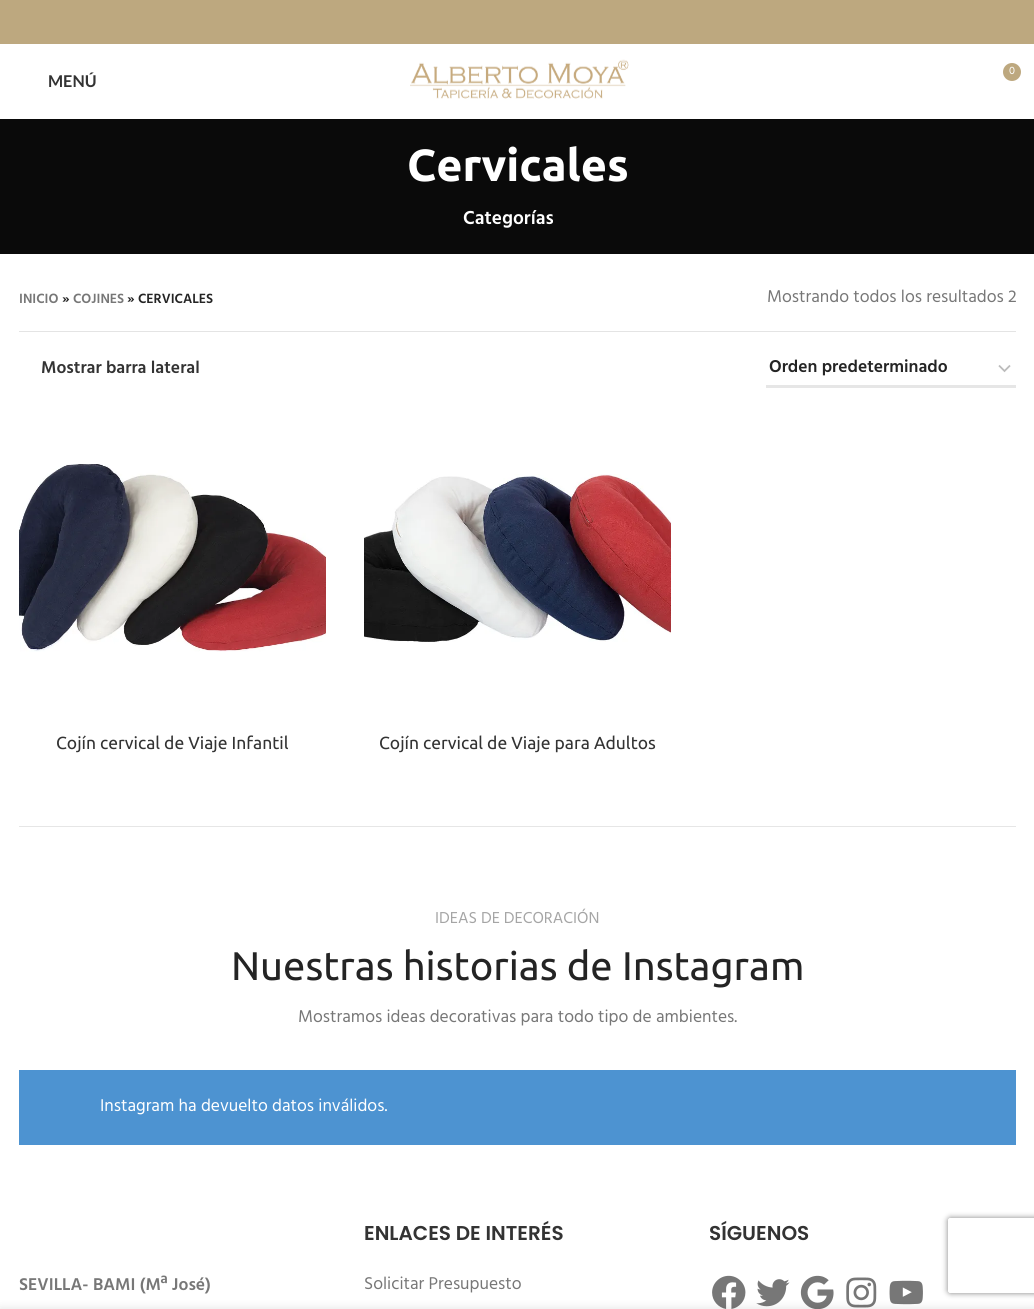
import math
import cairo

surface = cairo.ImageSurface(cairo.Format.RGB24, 1034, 1309)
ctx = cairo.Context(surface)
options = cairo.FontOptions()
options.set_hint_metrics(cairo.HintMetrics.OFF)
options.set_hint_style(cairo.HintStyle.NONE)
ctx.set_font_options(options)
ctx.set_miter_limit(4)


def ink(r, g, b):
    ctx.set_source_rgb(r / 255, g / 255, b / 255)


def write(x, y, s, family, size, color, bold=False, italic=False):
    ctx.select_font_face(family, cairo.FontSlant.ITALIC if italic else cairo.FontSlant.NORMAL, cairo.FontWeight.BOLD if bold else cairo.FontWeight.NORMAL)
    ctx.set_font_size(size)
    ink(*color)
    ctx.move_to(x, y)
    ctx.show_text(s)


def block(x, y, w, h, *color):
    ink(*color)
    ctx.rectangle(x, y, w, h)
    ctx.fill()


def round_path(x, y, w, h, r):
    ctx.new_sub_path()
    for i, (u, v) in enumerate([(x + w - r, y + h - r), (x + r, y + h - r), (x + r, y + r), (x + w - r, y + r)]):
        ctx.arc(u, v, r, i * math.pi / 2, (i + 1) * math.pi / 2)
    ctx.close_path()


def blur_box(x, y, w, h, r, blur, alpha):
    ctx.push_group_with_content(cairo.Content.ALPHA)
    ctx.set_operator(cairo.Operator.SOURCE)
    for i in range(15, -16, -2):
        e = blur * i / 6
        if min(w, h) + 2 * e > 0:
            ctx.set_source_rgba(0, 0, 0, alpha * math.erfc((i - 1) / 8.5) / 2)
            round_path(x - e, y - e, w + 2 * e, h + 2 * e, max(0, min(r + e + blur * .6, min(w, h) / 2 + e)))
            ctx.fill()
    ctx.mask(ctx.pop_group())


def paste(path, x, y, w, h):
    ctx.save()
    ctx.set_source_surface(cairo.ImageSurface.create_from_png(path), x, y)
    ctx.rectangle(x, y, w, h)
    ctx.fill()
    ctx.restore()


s1 = dict(family="Hind", size=11, color=(255, 255, 255))
s2 = dict(family="Lato", size=16.25, color=(51, 51, 51), bold=True)
s3 = dict(family="Ubuntu", size=45, color=(255, 255, 255), bold=True)
s4 = dict(family="Hind SemiBold", size=19.25, color=(255, 255, 255))
s5 = dict(family="Hind SemiBold", size=13.75, color=(119, 119, 119))
s6 = dict(family="Hind SemiBold", size=13.75, color=(36, 36, 36))
s7 = dict(family="Hind", size=17.5, color=(119, 119, 119))
s8 = dict(family="Hind SemiBold", size=17.5, color=(51, 51, 51))
s9 = dict(family="Hind SemiBold", size=17.5, color=(36, 36, 36))
s10 = dict(family="Ubuntu", size=17.5, color=(51, 51, 51))
s11 = dict(family="Hind", size=16.25, color=(165, 165, 165))
s12 = dict(family="Ubuntu", size=40, color=(36, 36, 36))
s13 = dict(family="Hind", size=17.5, color=(255, 255, 255))
s14 = dict(family="Poppins SemiBold", size=20, color=(51, 51, 51))
s15 = dict(family="Hind SemiBold", size=17.5, color=(119, 119, 119))

ink(255, 255, 255)
ctx.paint()
block(0, 0, 1034, 44, 189, 168, 127)
paste("pic1.png", 410, 59, 219, 40)
ctx.arc(1012, 72, 9, 0, 2 * math.pi)
ctx.fill()
write(1009, 74, "0", **s1)
write(48, 87, "MENÚ", **s2)
block(0, 119, 1034, 135, 10, 10, 10)
write(407, 181, "Cervicales", **s3)
write(463, 224, "Categorías", **s4)
block(19, 331, 997, 1, 228, 228, 228)
write(19, 303, "INICIO", **s5)
write(62, 303, "»", **s6)
write(73, 303, "COJINES", **s5)
write(127, 303, "» CERVICALES", **s6)
write(767, 302, "Mostrando todos los resultados 2", **s7)
write(41, 373, "Mostrar barra lateral", **s8)
ctx.new_path()
ctx.move_to(999, 365.5)
ctx.line_to(1004.5, 371)
ctx.line_to(1010, 365.5)
ink(187, 187, 187)
ctx.set_line_width(1.8)
ctx.stroke()
block(766, 385, 250, 3, 230, 230, 230)
write(769, 372, "Orden predeterminado", **s9)
paste("pic2.png", 19, 464, 307, 188)
write(56, 749, "Cojín cervical de Viaje Infantil", **s10)
paste("pic3.png", 364, 474, 307, 168)
write(379, 749, "Cojín cervical de Viaje para Adultos", **s10)
block(19, 826, 997, 1, 230, 230, 230)
write(435, 923, "IDEAS DE DECORACIÓN", **s11)
write(231, 980, "Nuestras historias de Instagram", **s12)
write(298, 1022, "Mostramos ideas decorativas para todo tipo de ambientes.", **s7)
block(19, 1070, 997, 75, 77, 147, 209)
write(100, 1111, "Instagram ha devuelto datos inválidos.", **s13)
write(364, 1240, "ENLACES DE INTERÉS", **s14)
write(364, 1289, "Solicitar Presupuesto", **s7)
write(709, 1240, "SÍGUENOS", **s14)
paste("pic4.png", 712, 1275, 34, 34)
paste("pic5.png", 756, 1279, 34, 28)
paste("pic6.png", 800, 1275, 34, 34)
paste("pic7.png", 846, 1277, 31, 31)
paste("pic8.png", 889, 1280, 34, 25)
write(19, 1290, "SEVILLA- BAMI (Mª José)", **s15)
ctx.save()
ctx.set_fill_rule(cairo.FillRule.EVEN_ODD)
ctx.new_path()
ctx.move_to(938, 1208)
ctx.line_to(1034, 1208)
ctx.line_to(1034, 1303)
ctx.line_to(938, 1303)
ctx.close_path()
ctx.move_to(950.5, 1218)
ctx.line_to(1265.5, 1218)
ctx.curve_to(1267, 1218, 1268, 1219, 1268, 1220.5)
ctx.line_to(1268, 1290.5)
ctx.curve_to(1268, 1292, 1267, 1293, 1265.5, 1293)
ctx.line_to(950.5, 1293)
ctx.curve_to(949, 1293, 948, 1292, 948, 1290.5)
ctx.line_to(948, 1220.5)
ctx.curve_to(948, 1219, 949, 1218, 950.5, 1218)
ctx.close_path()
ctx.clip()
ink(128, 128, 128)
blur_box(948, 1218, 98, 75, 2.5, 3, 1)
ctx.restore()
ink(255, 255, 255)
round_path(1020, 1245, 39, 50, 25)
ctx.fill()
ink(0, 0, 0)
blur_box(0, 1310, 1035, 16, 0, 5.5, 0.14)
surface.write_to_png("screenshot.png")
